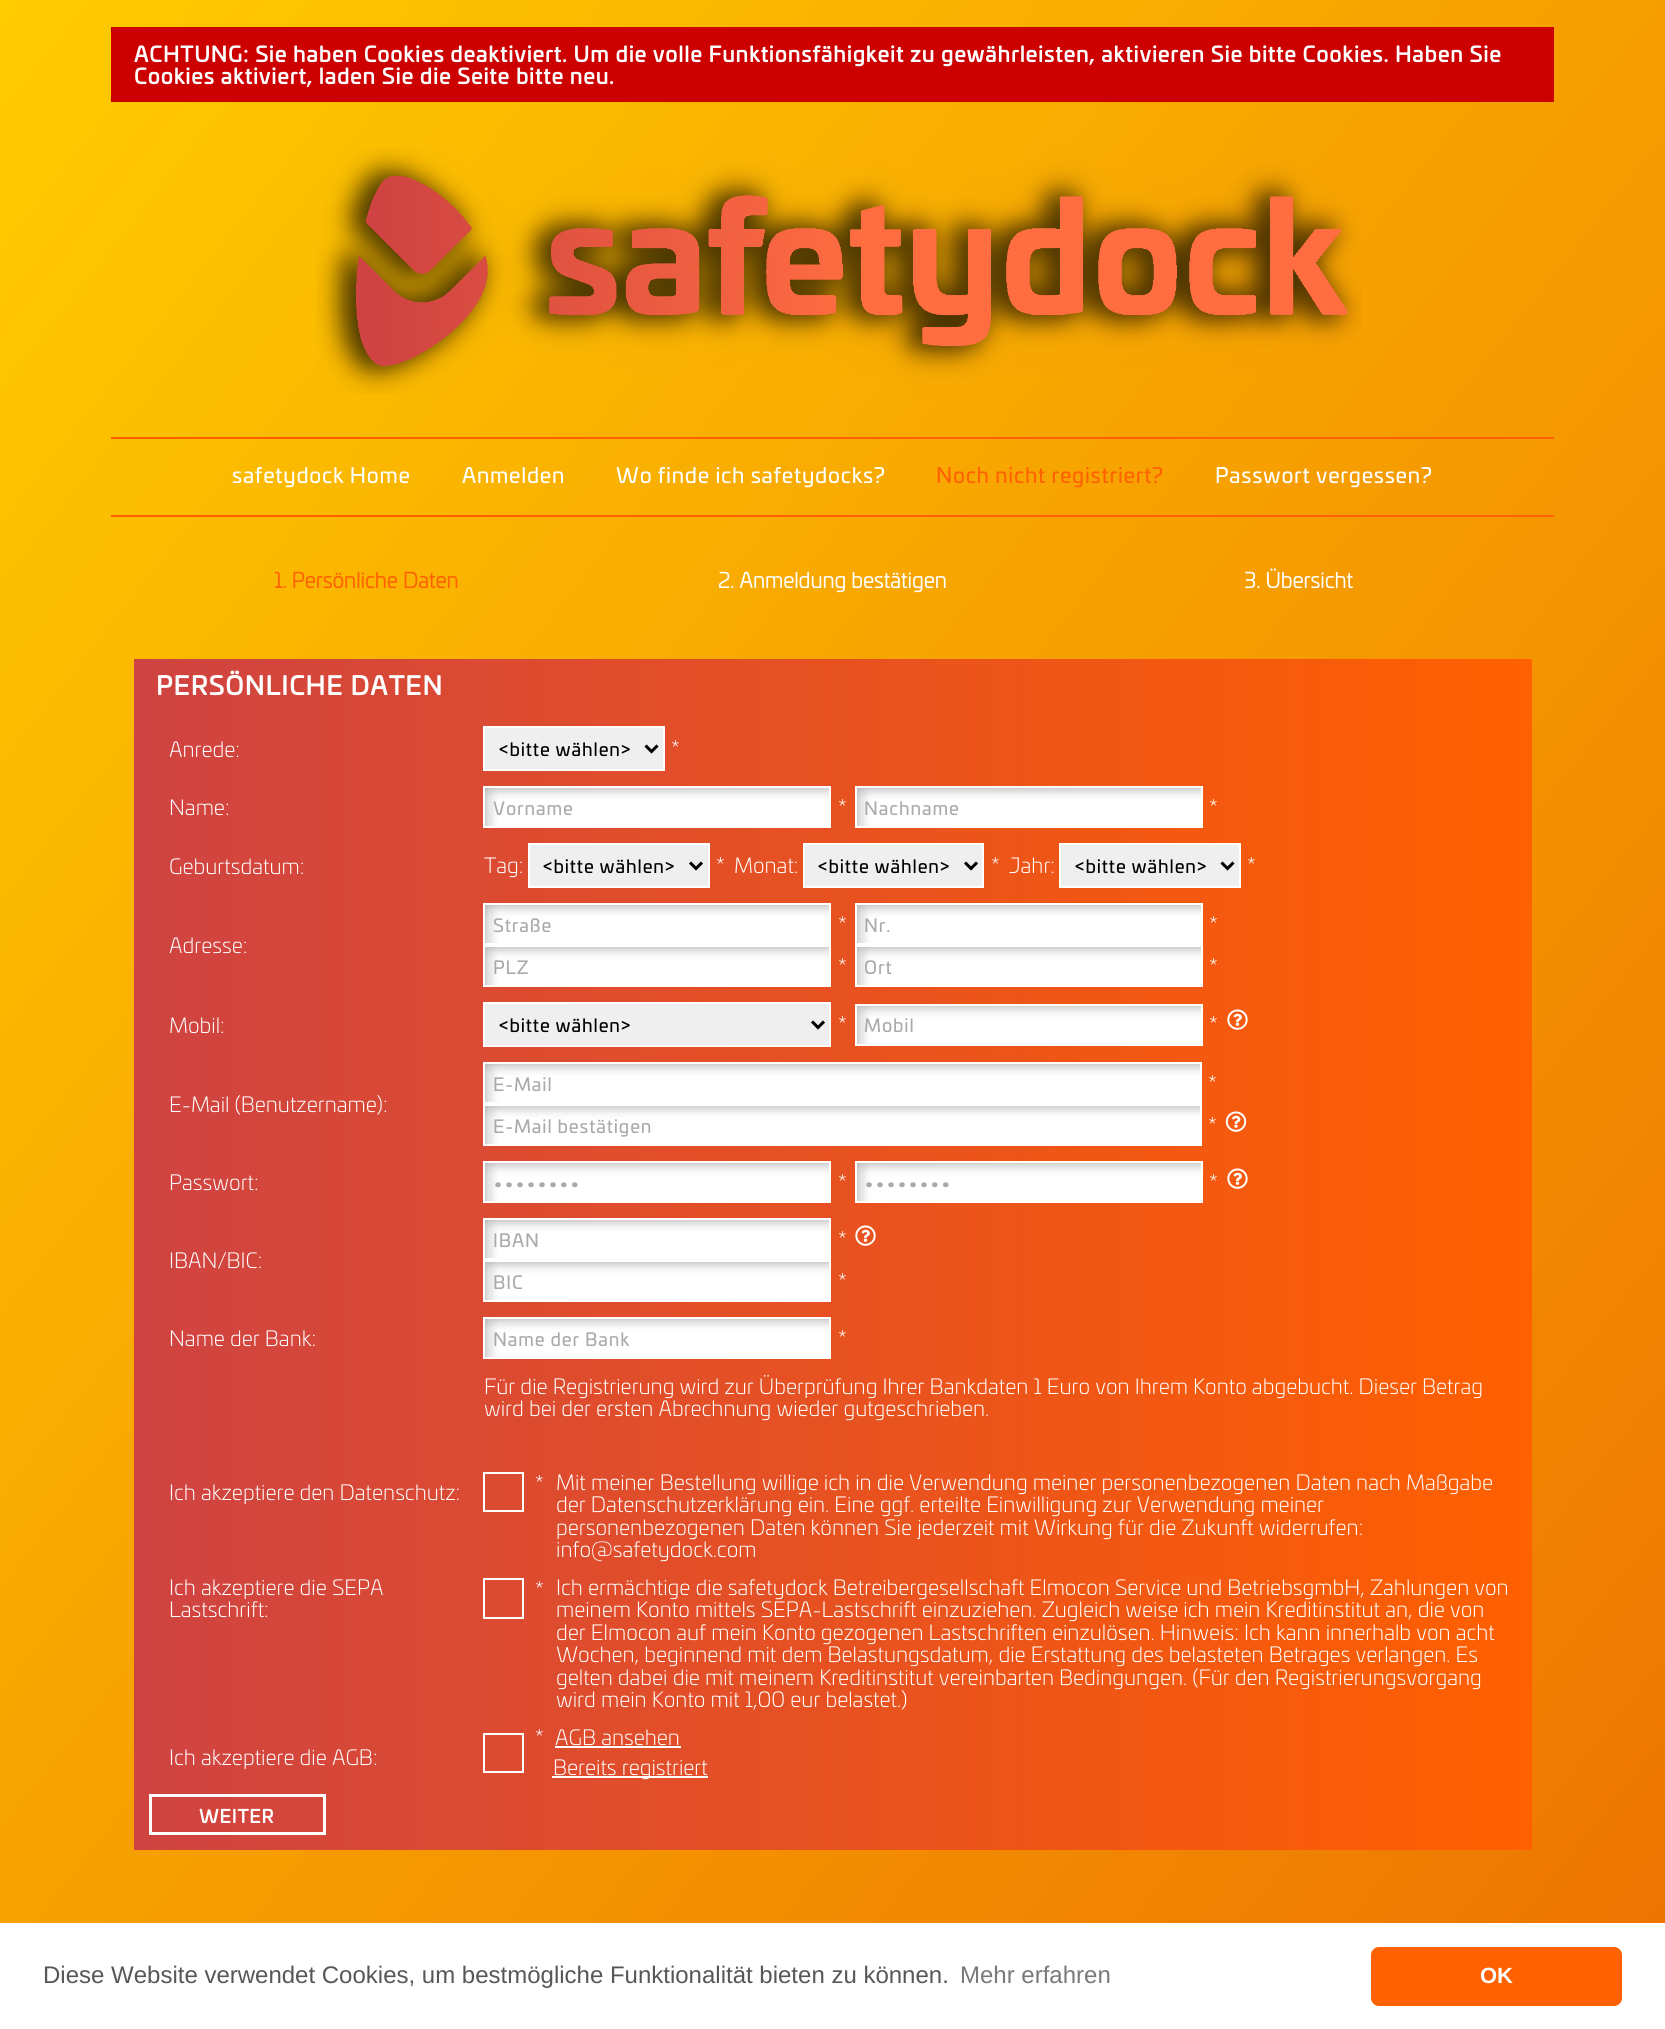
import math
import cairo

surface = cairo.ImageSurface(cairo.Format.RGB24, 1665, 2029)
ctx = cairo.Context(surface)
options = cairo.FontOptions()
options.set_hint_metrics(cairo.HintMetrics.OFF)
options.set_hint_style(cairo.HintStyle.NONE)
ctx.set_font_options(options)
ctx.set_miter_limit(4)


def ink(r, g, b):
    ctx.set_source_rgb(r / 255, g / 255, b / 255)


def write(x, y, s, family, size, color, bold=False, italic=False):
    ctx.select_font_face(family, cairo.FontSlant.ITALIC if italic else cairo.FontSlant.NORMAL, cairo.FontWeight.BOLD if bold else cairo.FontWeight.NORMAL)
    ctx.set_font_size(size)
    ink(*color)
    ctx.move_to(x, y)
    ctx.show_text(s)


def write_spaced(x, y, s, letter, word):
    ctx.move_to(x, y)
    for ch in s:
        ctx.show_text(ch)
        ctx.rel_move_to(letter + word * (ch == ' '), 0)


def block(x, y, w, h, *color):
    ink(*color)
    ctx.rectangle(x, y, w, h)
    ctx.fill()


def round_path(x, y, w, h, r):
    ctx.new_sub_path()
    for i, (u, v) in enumerate([(x + w - r, y + h - r), (x + r, y + h - r), (x + r, y + r), (x + w - r, y + r)]):
        ctx.arc(u, v, r, i * math.pi / 2, (i + 1) * math.pi / 2)
    ctx.close_path()


def paste(path, x, y, w, h):
    ctx.save()
    ctx.set_source_surface(cairo.ImageSurface.create_from_png(path), x, y)
    ctx.rectangle(x, y, w, h)
    ctx.fill()
    ctx.restore()


s1 = dict(family="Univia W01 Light", size=21, color=(255, 96, 0), bold=True)
s2 = dict(family="Univia W01 Light", size=21, color=(255, 255, 255), bold=True)
s3 = dict(family="Univia W01 Light Light", size=21, color=(255, 255, 255))
s4 = dict(family="Liberation Sans", size=24, color=(87, 87, 86))
s5 = dict(family="Liberation Sans", size=24, color=(121, 121, 120))
s6 = dict(family="Liberation Sans", size=22, color=(255, 255, 255), bold=True)

ink(255, 255, 255)
ctx.paint()
gradient = cairo.LinearGradient(-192, 240, 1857, 1860)
gradient.add_color_stop_rgba(0, 1, 0.8, 0, 1)
gradient.add_color_stop_rgba(1, 0.929, 0.443, 0.008, 1)
ctx.set_source(gradient)
ctx.rectangle(0, 0, 1665, 1923)
ctx.fill()
block(111, 27, 1443, 75, 205, 0, 0)
ctx.select_font_face("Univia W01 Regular", cairo.FontSlant.NORMAL, cairo.FontWeight.BOLD)
ctx.set_font_size(21)
ink(255, 255, 255)
write_spaced(134, 62, "ACHTUNG: Sie haben Cookies deaktiviert. Um die volle Funktionsfähigkeit zu gewährleisten, aktivieren Sie bitte Cookies. Haben Sie", 1.05, 0)
write_spaced(134, 84, "Cookies aktiviert, laden Sie die Seite bitte neu.", 1.05, 0)
paste("pic1.png", 316, 148, 1046, 246)
block(111, 437, 1443, 2, 255, 96, 0)
block(111, 515, 1443, 2, 255, 96, 0)
ctx.select_font_face("Univia W01 Regular")
ink(255, 255, 255)
write_spaced(232, 483, "safetydock Home", 0.75, 0)
write_spaced(462, 483, "Anmelden", 0.75, 0)
write_spaced(616, 483, "Wo finde ich safetydocks?", 0.75, 0)
ink(255, 96, 0)
write_spaced(936, 483, "Noch nicht registriert?", 0.75, 0)
ink(255, 255, 255)
write_spaced(1215, 483, "Passwort vergessen?", 0.75, 0)
write(274, 588, "1. Persönliche Daten", **s1)
write(718, 588, "2. Anmeldung bestätigen", **s2)
write(1244, 588, "3. Übersicht", **s2)
gradient = cairo.LinearGradient(134, 1254, 1532, 1254)
gradient.add_color_stop_rgba(0, 0.812, 0.263, 0.259, 1)
gradient.add_color_stop_rgba(1, 1, 0.376, 0, 1)
ctx.set_source(gradient)
ctx.rectangle(134, 659, 1398, 1191)
ctx.fill()
ctx.select_font_face("Univia W01 Regular", cairo.FontSlant.NORMAL, cairo.FontWeight.BOLD)
ctx.set_font_size(25.25)
ink(255, 255, 255)
write_spaced(156, 695, "PERSÖNLICHE DATEN", 1.25, 0)
write(169, 757, "Anrede:", **s3)
ink(239, 239, 239)
ctx.rectangle(484, 727, 180, 43)
ctx.fill_preserve()
ink(255, 255, 255)
ctx.stroke()
ctx.new_path()
ctx.move_to(645.5, 745.5)
ctx.line_to(651.5, 751.5)
ctx.line_to(657.5, 745.5)
ink(0, 0, 0)
ctx.set_line_width(3)
ctx.stroke()
ctx.select_font_face("Univia W01 Regular")
ctx.set_font_size(18)
write_spaced(499, 756, "<bitte wählen>", 0.9, 0)
write(671, 756, "*", **s3)
write(169, 815, "Name:", **s3)
paste("pic2.png", 485, 788, 344, 38)
ctx.rectangle(484, 787, 346, 40)
ctx.set_line_width(2)
ctx.stroke()
ctx.select_font_face("Univia W01 Regular")
ctx.set_font_size(18)
ink(170, 170, 170)
write_spaced(493, 815, "Vorname", 0.9, 0)
write(838, 815, "*", **s3)
paste("pic2.png", 857, 788, 344, 38)
ctx.rectangle(856, 787, 346, 40)
ctx.stroke()
ctx.select_font_face("Univia W01 Regular")
ctx.set_font_size(18)
ink(170, 170, 170)
write_spaced(864, 815, "Nachname", 0.9, 0)
write(1209, 815, "*", **s3)
write(169, 874, "Geburtsdatum:", **s3)
write(484, 873, "Tag:", **s3)
ink(239, 239, 239)
ctx.rectangle(529, 844, 180, 43)
ctx.fill_preserve()
ink(255, 255, 255)
ctx.stroke()
ctx.new_path()
ctx.move_to(690, 862.5)
ctx.line_to(696, 868.5)
ctx.line_to(702, 862.5)
ink(0, 0, 0)
ctx.set_line_width(3)
ctx.stroke()
ctx.select_font_face("Univia W01 Regular")
ctx.set_font_size(18)
write_spaced(543, 873, "<bitte wählen>", 0.9, 0)
write(716, 873, "*", **s3)
write(734, 873, "Monat:", **s3)
ink(239, 239, 239)
ctx.rectangle(804, 844, 179, 43)
ctx.fill_preserve()
ink(255, 255, 255)
ctx.set_line_width(2)
ctx.stroke()
ctx.new_path()
ctx.move_to(965, 862.5)
ctx.line_to(971, 868.5)
ctx.line_to(977, 862.5)
ink(0, 0, 0)
ctx.set_line_width(3)
ctx.stroke()
ctx.select_font_face("Univia W01 Regular")
ctx.set_font_size(18)
write_spaced(818, 873, "<bitte wählen>", 0.9, 0)
write(991, 873, "*", **s3)
write(1009, 873, "Jahr:", **s3)
ink(239, 239, 239)
ctx.rectangle(1060, 844, 180, 43)
ctx.fill_preserve()
ink(255, 255, 255)
ctx.set_line_width(2)
ctx.stroke()
ctx.new_path()
ctx.move_to(1221.5, 862.5)
ctx.line_to(1227.5, 868.5)
ctx.line_to(1233.5, 862.5)
ink(0, 0, 0)
ctx.set_line_width(3)
ctx.stroke()
ctx.select_font_face("Univia W01 Regular")
ctx.set_font_size(18)
write_spaced(1075, 873, "<bitte wählen>", 0.9, 0)
write(1247, 873, "*", **s3)
write(169, 953, "Adresse:", **s3)
paste("pic2.png", 485, 905, 344, 38)
ctx.rectangle(484, 904, 346, 40)
ctx.set_line_width(2)
ctx.stroke()
ctx.select_font_face("Univia W01 Regular")
ctx.set_font_size(18)
ink(170, 170, 170)
write_spaced(493, 932, "Straße", 0.9, 0)
write(838, 932, "*", **s3)
paste("pic2.png", 857, 905, 344, 38)
ctx.rectangle(856, 904, 346, 40)
ctx.stroke()
ctx.select_font_face("Univia W01 Regular")
ctx.set_font_size(18)
ink(170, 170, 170)
write_spaced(864, 932, "Nr.", 0.9, 0)
write(1209, 932, "*", **s3)
paste("pic2.png", 485, 947, 344, 38)
ctx.rectangle(484, 946, 346, 40)
ctx.stroke()
ctx.select_font_face("Univia W01 Regular")
ctx.set_font_size(18)
ink(170, 170, 170)
write_spaced(493, 974, "PLZ", 0.9, 0)
write(838, 974, "*", **s3)
paste("pic2.png", 857, 947, 344, 38)
ctx.rectangle(856, 946, 346, 40)
ctx.stroke()
ctx.select_font_face("Univia W01 Regular")
ctx.set_font_size(18)
ink(170, 170, 170)
write_spaced(864, 974, "Ort", 0.9, 0)
write(1209, 974, "*", **s3)
write(169, 1033, "Mobil:", **s3)
ink(239, 239, 239)
ctx.rectangle(484, 1003, 346, 43)
ctx.fill_preserve()
ink(255, 255, 255)
ctx.stroke()
ctx.new_path()
ctx.move_to(812, 1021.5)
ctx.line_to(818, 1027.5)
ctx.line_to(824, 1021.5)
ink(0, 0, 0)
ctx.set_line_width(3)
ctx.stroke()
ctx.select_font_face("Univia W01 Regular")
ctx.set_font_size(18)
write_spaced(499, 1032, "<bitte wählen>", 0.9, 0)
write(838, 1032, "*", **s3)
paste("pic3.png", 857, 1006, 344, 38)
ctx.rectangle(856, 1005, 346, 40)
ctx.set_line_width(2)
ctx.stroke()
ctx.select_font_face("Univia W01 Regular")
ctx.set_font_size(18)
ink(170, 170, 170)
write_spaced(864, 1032, "Mobil", 0.9, 0)
write(1209, 1032, "*", **s3)
paste("pic4.png", 1227, 1009, 21, 21)
write(169, 1112, "E-Mail (Benutzername):", **s3)
paste("pic5.png", 485, 1064, 715, 38)
ctx.rectangle(484, 1063, 717, 40)
ctx.stroke()
ctx.select_font_face("Univia W01 Regular")
ctx.set_font_size(18)
ink(170, 170, 170)
write_spaced(493, 1091, "E-Mail", 0.9, 0)
write(1208, 1091, "*", **s3)
paste("pic5.png", 485, 1106, 715, 38)
ctx.rectangle(484, 1105, 717, 40)
ctx.stroke()
ctx.select_font_face("Univia W01 Regular")
ctx.set_font_size(18)
ink(170, 170, 170)
write_spaced(493, 1133, "E-Mail bestätigen", 0.9, 0)
write(1208, 1133, "*", **s3)
paste("pic6.png", 1225, 1111, 22, 21)
write(169, 1190, "Passwort:", **s3)
write(838, 1190, "*", **s3)
write(1209, 1190, "*", **s3)
paste("pic4.png", 1227, 1168, 21, 21)
paste("pic2.png", 485, 1163, 344, 38)
ctx.rectangle(484, 1162, 346, 40)
ctx.stroke()
ctx.select_font_face("Univia W01 Regular")
ctx.set_font_size(18)
ink(170, 170, 170)
write_spaced(493, 1190, "••••••••", 0.9, 0)
paste("pic2.png", 857, 1163, 344, 38)
ctx.rectangle(856, 1162, 346, 40)
ink(255, 255, 255)
ctx.stroke()
ink(170, 170, 170)
write_spaced(864, 1190, "••••••••", 0.9, 0)
write(169, 1268, "IBAN/BIC:", **s3)
paste("pic2.png", 485, 1220, 344, 38)
ctx.rectangle(484, 1219, 346, 40)
ctx.stroke()
ctx.select_font_face("Univia W01 Regular")
ctx.set_font_size(18)
ink(170, 170, 170)
write_spaced(493, 1247, "IBAN", 0.9, 0)
write(838, 1247, "*", **s3)
paste("pic7.png", 855, 1225, 21, 21)
paste("pic2.png", 485, 1262, 344, 38)
ctx.rectangle(484, 1261, 346, 40)
ctx.stroke()
ctx.select_font_face("Univia W01 Regular")
ctx.set_font_size(18)
ink(170, 170, 170)
write_spaced(493, 1289, "BIC", 0.9, 0)
write(838, 1289, "*", **s3)
write(169, 1346, "Name der Bank:", **s3)
paste("pic2.png", 485, 1319, 344, 38)
ctx.rectangle(484, 1318, 346, 40)
ctx.stroke()
ctx.select_font_face("Univia W01 Regular")
ctx.set_font_size(18)
ink(170, 170, 170)
write_spaced(493, 1346, "Name der Bank", 0.9, 0)
write(838, 1346, "*", **s3)
write(484, 1394, "Für die Registrierung wird zur Überprüfung Ihrer Bankdaten 1 Euro von Ihrem Konto abgebucht. Dieser Betrag", **s3)
write(484, 1416, "wird bei der ersten Abrechnung wieder gutgeschrieben.", **s3)
ctx.rectangle(484, 1473, 39, 38)
ctx.stroke()
write(535, 1491, "*", **s3)
write(169, 1500, "Ich akzeptiere den Datenschutz:", **s3)
write(556, 1490, "Mit meiner Bestellung willige ich in die Verwendung meiner personenbezogenen Daten nach Maßgabe", **s3)
write(556, 1512, "der Datenschutzerklärung ein. Eine ggf. erteilte Einwilligung zur Verwendung meiner", **s3)
write(556, 1535, "personenbezogenen Daten können Sie jederzeit mit Wirkung für die Zukunft widerrufen:", **s3)
write(556, 1557, "info@safetydock.com", **s3)
write(169, 1595, "Ich akzeptiere die SEPA", **s3)
write(169, 1617, "Lastschrift:", **s3)
ctx.rectangle(484, 1579, 39, 39)
ctx.stroke()
write(535, 1597, "*", **s3)
write(556, 1595, "Ich ermächtige die safetydock Betreibergesellschaft Elmocon Service und BetriebsgmbH, Zahlungen von", **s3)
write(556, 1617, "meinem Konto mittels SEPA-Lastschrift einzuziehen. Zugleich weise ich mein Kreditinstitut an, die von", **s3)
write(556, 1640, "der Elmocon auf mein Konto gezogenen Lastschriften einzulösen. Hinweis: Ich kann innerhalb von acht", **s3)
write(556, 1662, "Wochen, beginnend mit dem Belastungsdatum, die Erstattung des belasteten Betrages verlangen. Es", **s3)
write(556, 1685, "gelten dabei die mit meinem Kreditinstitut vereinbarten Bedingungen. (Für den Registrierungsvorgang", **s3)
write(556, 1707, "wird mein Konto mit 1,00 eur belastet.)", **s3)
write(169, 1765, "Ich akzeptiere die AGB:", **s3)
ctx.rectangle(484, 1734, 39, 38)
ctx.stroke()
write(535, 1745, "*", **s3)
write(555, 1745, "AGB ansehen", **s3)
block(555, 1746, 126, 2, 255, 255, 255)
block(552, 1776, 156, 2, 255, 255, 255)
write(553, 1775, "Bereits registriert", **s3)
ctx.rectangle(150.5, 1795.5, 174, 38)
ctx.set_line_width(3)
ctx.stroke()
ctx.select_font_face("Univia W01 Regular", cairo.FontSlant.NORMAL, cairo.FontWeight.BOLD)
ctx.set_font_size(18)
write_spaced(199, 1823, "WEITER", 0.9, 0)
write(43, 1983, "Diese Website verwendet Cookies, um bestmögliche Funktionalität bieten zu können.", **s4)
write(960, 1983, "Mehr erfahren", **s5)
ink(255, 96, 0)
round_path(1371, 1947, 251, 59, 8)
ctx.fill()
write(1480, 1983, "OK", **s6)
surface.write_to_png("screenshot.png")
